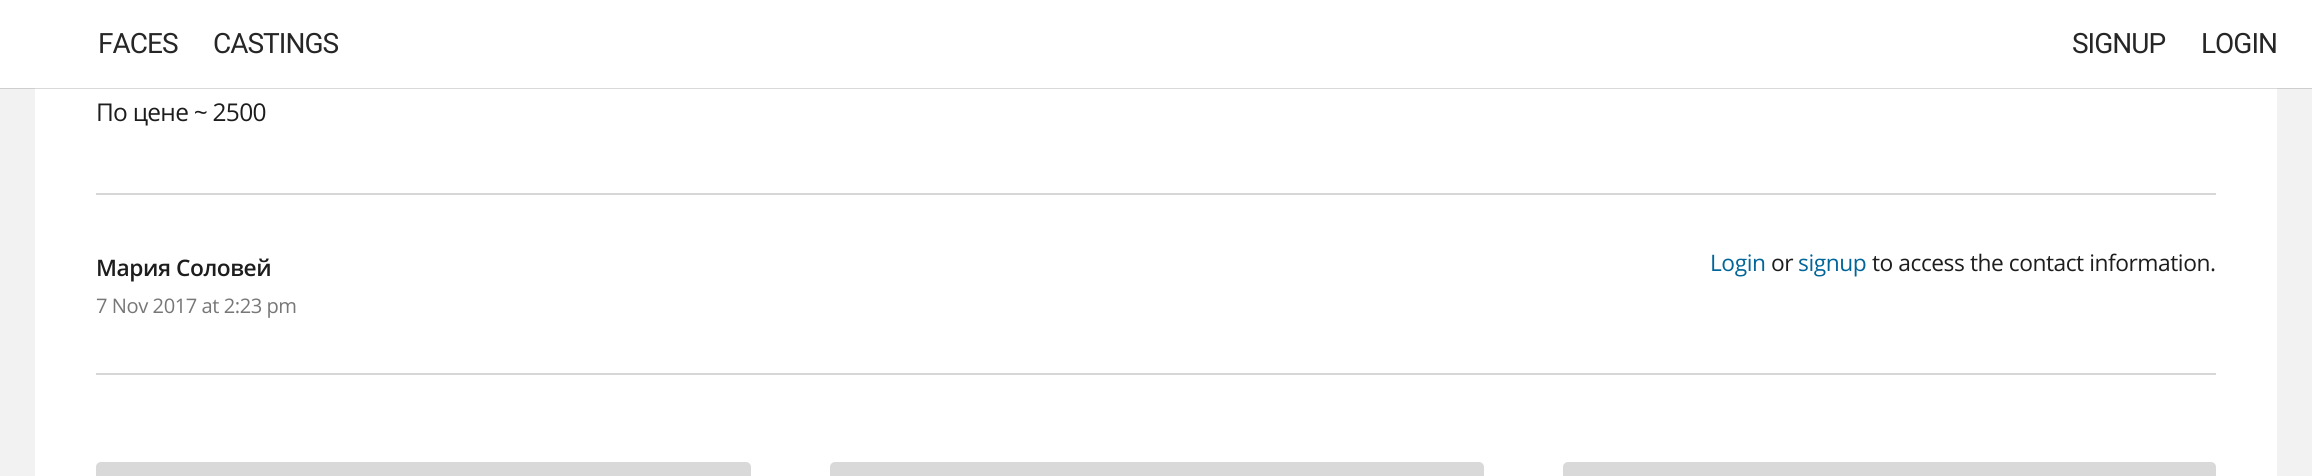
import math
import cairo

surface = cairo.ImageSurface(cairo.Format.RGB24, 2313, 476)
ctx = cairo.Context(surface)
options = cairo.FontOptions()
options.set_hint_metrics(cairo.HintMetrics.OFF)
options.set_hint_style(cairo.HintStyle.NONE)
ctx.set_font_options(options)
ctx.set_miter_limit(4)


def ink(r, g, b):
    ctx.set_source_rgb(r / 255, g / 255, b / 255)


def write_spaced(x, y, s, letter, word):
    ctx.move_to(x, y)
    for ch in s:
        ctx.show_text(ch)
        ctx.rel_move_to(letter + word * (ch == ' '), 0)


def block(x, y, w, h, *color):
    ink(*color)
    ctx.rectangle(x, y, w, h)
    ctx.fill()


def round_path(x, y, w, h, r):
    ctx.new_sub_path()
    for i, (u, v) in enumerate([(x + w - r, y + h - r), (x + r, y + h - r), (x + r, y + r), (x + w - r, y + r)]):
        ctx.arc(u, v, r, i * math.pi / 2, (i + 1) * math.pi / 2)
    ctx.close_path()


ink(255, 255, 255)
ctx.paint()
block(0, 88, 2312, 388, 242, 242, 242)
block(35, 88, 2242, 388, 255, 255, 255)
ctx.set_source_rgba(0, 0, 0, 0.15)
ctx.new_path()
ctx.move_to(0, 88)
ctx.line_to(0, 89)
ctx.line_to(2312, 89)
ctx.line_to(2312, 2)
ctx.line_to(2312, 88)
ctx.close_path()
ctx.fill()
ctx.select_font_face("Roboto")
ctx.set_font_size(28)
ink(38, 38, 38)
write_spaced(98, 53, "FACES", -1, 0)
write_spaced(213, 53, "CASTINGS", -1, 0)
write_spaced(2072, 53, "SIGNUP", -1, 0)
write_spaced(2201, 53, "LOGIN", -1, 0)
ctx.select_font_face("Open Sans")
ctx.set_font_size(24.5)
ink(29, 29, 30)
write_spaced(96, 121, "По цене ~ 2500", -0.75, 0)
block(96, 193, 2120, 2, 214, 214, 214)
ctx.select_font_face("Open Sans SemiBold")
ctx.set_font_size(22.75)
ink(29, 29, 30)
write_spaced(96, 276, "Мария Соловей", -0.45, 0)
ctx.select_font_face("Open Sans")
ctx.set_font_size(20.1)
ink(119, 119, 119)
write_spaced(96, 313, "7 Nov 2017 at 2:23 pm", -0.45, 0)
ctx.set_font_size(22.75)
ink(0, 101, 152)
write_spaced(1710, 271, "Login", -0.45, 0)
ink(29, 29, 30)
write_spaced(1771, 271, "or", -0.45, 0)
ink(0, 101, 152)
write_spaced(1798, 271, "signup", -0.45, 0)
ink(29, 29, 30)
write_spaced(1872, 271, "to access the contact information.", -0.45, 0)
block(96, 373, 2120, 2, 214, 214, 214)
ink(217, 217, 217)
round_path(96, 462, 655, 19, 5)
ctx.fill()
round_path(830, 462, 654, 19, 5)
ctx.fill()
round_path(1563, 462, 653, 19, 5)
ctx.fill()
surface.write_to_png("screenshot.png")
